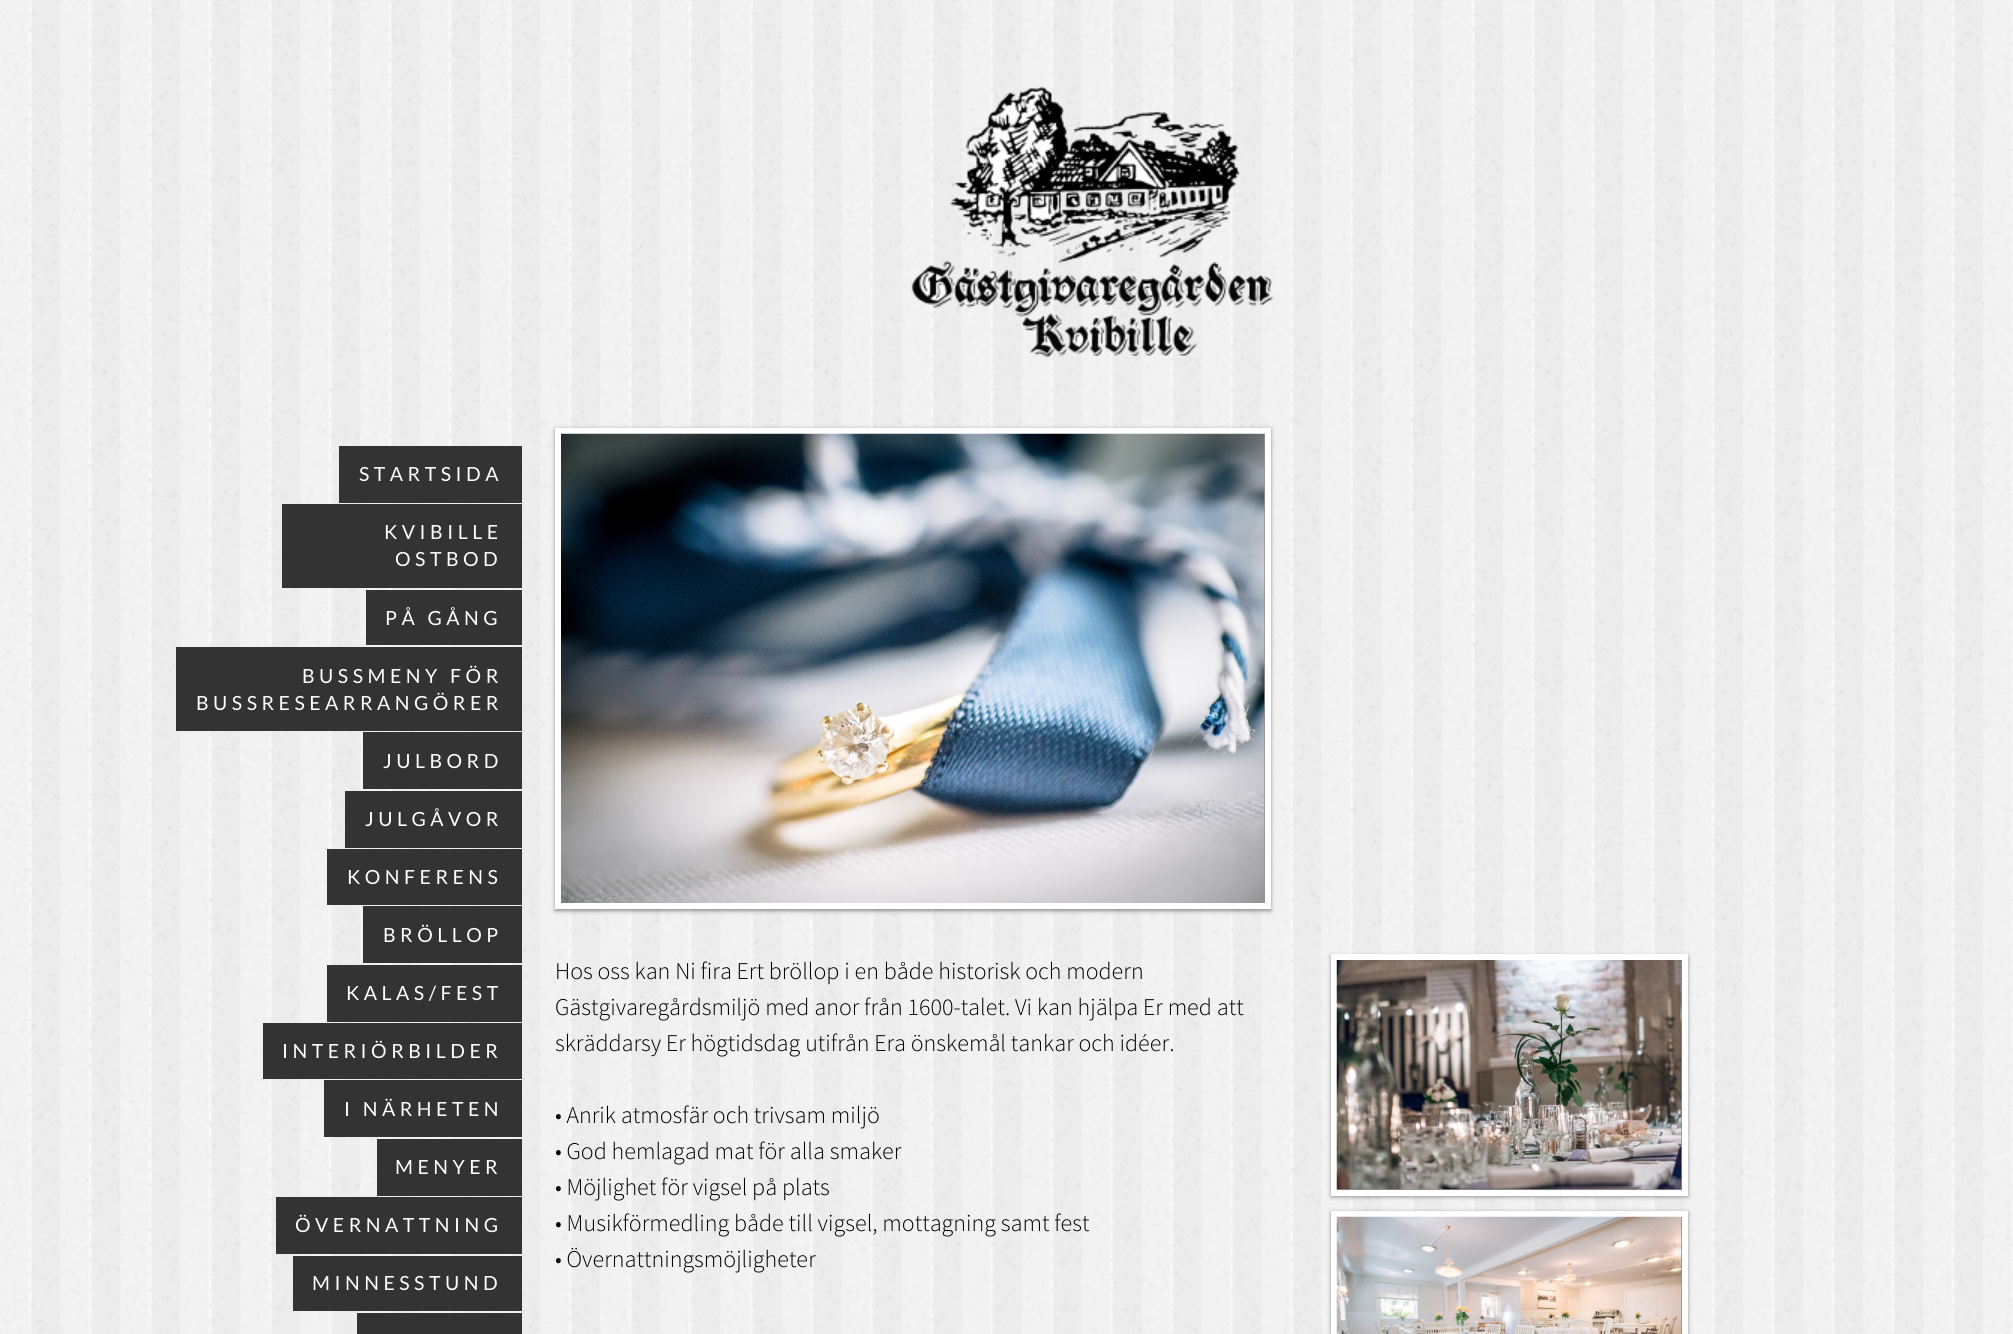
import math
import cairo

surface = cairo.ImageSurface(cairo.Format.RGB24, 2013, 1334)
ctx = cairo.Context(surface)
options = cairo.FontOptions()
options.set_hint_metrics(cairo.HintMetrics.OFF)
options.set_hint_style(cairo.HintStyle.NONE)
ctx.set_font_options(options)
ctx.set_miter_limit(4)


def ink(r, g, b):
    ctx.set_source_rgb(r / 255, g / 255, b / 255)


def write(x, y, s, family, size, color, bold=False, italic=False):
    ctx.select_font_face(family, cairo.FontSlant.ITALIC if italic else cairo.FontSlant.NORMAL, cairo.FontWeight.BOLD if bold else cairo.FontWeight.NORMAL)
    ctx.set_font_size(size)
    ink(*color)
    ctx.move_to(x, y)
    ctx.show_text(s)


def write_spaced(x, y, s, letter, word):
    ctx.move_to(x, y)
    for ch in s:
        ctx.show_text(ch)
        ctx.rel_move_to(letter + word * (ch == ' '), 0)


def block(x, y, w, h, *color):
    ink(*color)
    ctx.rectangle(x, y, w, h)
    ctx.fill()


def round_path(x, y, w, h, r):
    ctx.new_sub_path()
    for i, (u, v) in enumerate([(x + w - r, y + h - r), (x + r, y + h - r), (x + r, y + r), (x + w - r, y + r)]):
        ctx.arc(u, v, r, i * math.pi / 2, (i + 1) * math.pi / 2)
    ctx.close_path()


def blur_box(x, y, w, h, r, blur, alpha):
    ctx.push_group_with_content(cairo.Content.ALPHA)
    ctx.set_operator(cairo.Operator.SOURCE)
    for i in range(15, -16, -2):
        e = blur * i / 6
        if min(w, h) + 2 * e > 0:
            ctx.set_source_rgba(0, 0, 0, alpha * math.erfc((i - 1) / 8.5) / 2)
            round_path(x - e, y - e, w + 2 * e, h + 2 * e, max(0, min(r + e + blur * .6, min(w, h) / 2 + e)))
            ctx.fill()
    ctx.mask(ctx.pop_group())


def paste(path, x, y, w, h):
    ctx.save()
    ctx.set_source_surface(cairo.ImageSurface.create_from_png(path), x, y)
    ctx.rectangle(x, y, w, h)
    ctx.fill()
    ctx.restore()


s1 = dict(family="Source Sans Pro Light", size=24, color=(0, 0, 0))

ink(255, 255, 255)
ctx.paint()
paste("pic1.png", 0, 0, 2013, 1334)
paste("pic2.png", 911, 86, 363, 272)
block(339, 446, 183, 57, 51, 51, 51)
ctx.select_font_face("Lato")
ctx.set_font_size(19.5)
ink(255, 255, 255)
write_spaced(359, 481, "STARTSIDA", 4.5, 0)
block(282, 504, 240, 84, 51, 51, 51)
ink(255, 255, 255)
write_spaced(384, 539, "KVIBILLE", 4.5, 0)
write_spaced(395, 566, "OSTBOD", 4.5, 0)
block(366, 590, 156, 55, 51, 51, 51)
ink(255, 255, 255)
write_spaced(385, 625, "PÅ GÅNG", 4.5, 0)
block(176, 647, 346, 84, 51, 51, 51)
ink(255, 255, 255)
write_spaced(302, 683, "BUSSMENY FÖR", 4.5, 0)
write_spaced(196, 710, "BUSSRESEARRANGÖRER", 4.5, 0)
block(363, 732, 159, 57, 51, 51, 51)
ink(255, 255, 255)
write_spaced(383, 768, "JULBORD", 4.5, 0)
block(345, 791, 177, 57, 51, 51, 51)
ink(255, 255, 255)
write_spaced(365, 826, "JULGÅVOR", 4.5, 0)
block(327, 849, 195, 56, 51, 51, 51)
ink(255, 255, 255)
write_spaced(347, 884, "KONFERENS", 4.5, 0)
block(363, 906, 159, 57, 51, 51, 51)
ink(255, 255, 255)
write_spaced(383, 942, "BRÖLLOP", 4.5, 0)
block(327, 965, 195, 57, 51, 51, 51)
ink(255, 255, 255)
write_spaced(346, 1000, "KALAS/FEST", 4.5, 0)
block(263, 1023, 259, 56, 51, 51, 51)
ink(255, 255, 255)
write_spaced(282, 1058, "INTERIÖRBILDER", 4.5, 0)
block(324, 1080, 198, 57, 51, 51, 51)
ink(255, 255, 255)
write_spaced(344, 1116, "I NÄRHETEN", 4.5, 0)
block(377, 1139, 145, 57, 51, 51, 51)
ink(255, 255, 255)
write_spaced(395, 1174, "MENYER", 4.5, 0)
block(276, 1197, 246, 57, 51, 51, 51)
ink(255, 255, 255)
write_spaced(295, 1232, "ÖVERNATTNING", 4.5, 0)
block(293, 1256, 229, 55, 51, 51, 51)
ink(255, 255, 255)
write_spaced(312, 1290, "MINNESSTUND", 4.5, 0)
block(357, 1313, 165, 21, 51, 51, 51)
ink(0, 0, 0)
blur_box(555, 429, 716, 482, 0, 2, 0.4)
ctx.rectangle(558, 431, 710, 475)
ink(255, 255, 255)
ctx.set_line_width(6)
ctx.stroke()
paste("pic3.png", 561, 433, 704, 470)
write(555, 979, "Hos oss kan Ni fira Ert bröllop i en både historisk och modern", **s1)
write(555, 1015, "Gästgivaregårdsmiljö med anor från 1600-talet. Vi kan hjälpa Er med att", **s1)
write(555, 1051, "skräddarsy Er högtidsdag utifrån Era önskemål tankar och idéer.", **s1)
write(555, 1123, "• Anrik atmosfär och trivsam miljö", **s1)
write(555, 1159, "• God hemlagad mat för alla smaker", **s1)
write(555, 1195, "• Möjlighet för vigsel på plats", **s1)
write(555, 1231, "• Musikförmedling både till vigsel, mottagning samt fest", **s1)
write(555, 1267, "• Övernattningsmöjligheter", **s1)
ink(0, 0, 0)
blur_box(1331, 956, 357, 241, 0, 2, 0.4)
ctx.rectangle(1334, 957, 351, 236)
ink(255, 255, 255)
ctx.stroke()
paste("pic4.png", 1336, 960, 346, 230)
ink(0, 0, 0)
blur_box(1331, 1212, 357, 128, 0, 2, 0.4)
ctx.rectangle(1334, 1214, 351, 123)
ink(255, 255, 255)
ctx.stroke()
paste("pic5.png", 1336, 1216, 346, 118)
surface.write_to_png("screenshot.png")
